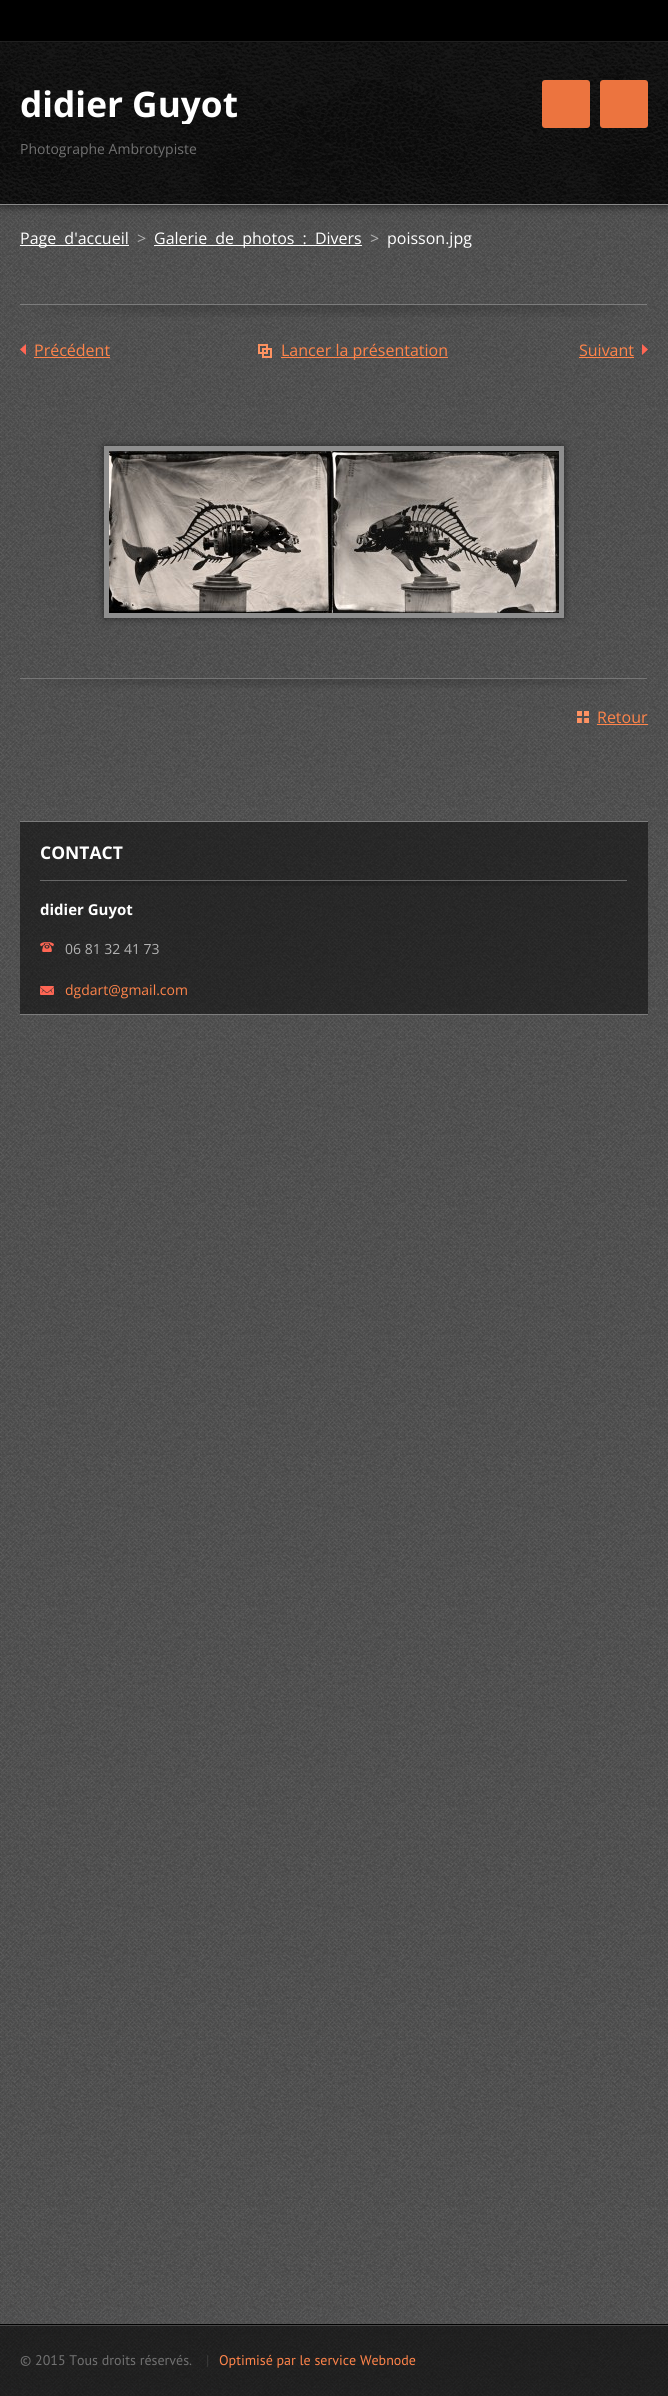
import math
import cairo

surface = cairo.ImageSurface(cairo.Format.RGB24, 668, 2396)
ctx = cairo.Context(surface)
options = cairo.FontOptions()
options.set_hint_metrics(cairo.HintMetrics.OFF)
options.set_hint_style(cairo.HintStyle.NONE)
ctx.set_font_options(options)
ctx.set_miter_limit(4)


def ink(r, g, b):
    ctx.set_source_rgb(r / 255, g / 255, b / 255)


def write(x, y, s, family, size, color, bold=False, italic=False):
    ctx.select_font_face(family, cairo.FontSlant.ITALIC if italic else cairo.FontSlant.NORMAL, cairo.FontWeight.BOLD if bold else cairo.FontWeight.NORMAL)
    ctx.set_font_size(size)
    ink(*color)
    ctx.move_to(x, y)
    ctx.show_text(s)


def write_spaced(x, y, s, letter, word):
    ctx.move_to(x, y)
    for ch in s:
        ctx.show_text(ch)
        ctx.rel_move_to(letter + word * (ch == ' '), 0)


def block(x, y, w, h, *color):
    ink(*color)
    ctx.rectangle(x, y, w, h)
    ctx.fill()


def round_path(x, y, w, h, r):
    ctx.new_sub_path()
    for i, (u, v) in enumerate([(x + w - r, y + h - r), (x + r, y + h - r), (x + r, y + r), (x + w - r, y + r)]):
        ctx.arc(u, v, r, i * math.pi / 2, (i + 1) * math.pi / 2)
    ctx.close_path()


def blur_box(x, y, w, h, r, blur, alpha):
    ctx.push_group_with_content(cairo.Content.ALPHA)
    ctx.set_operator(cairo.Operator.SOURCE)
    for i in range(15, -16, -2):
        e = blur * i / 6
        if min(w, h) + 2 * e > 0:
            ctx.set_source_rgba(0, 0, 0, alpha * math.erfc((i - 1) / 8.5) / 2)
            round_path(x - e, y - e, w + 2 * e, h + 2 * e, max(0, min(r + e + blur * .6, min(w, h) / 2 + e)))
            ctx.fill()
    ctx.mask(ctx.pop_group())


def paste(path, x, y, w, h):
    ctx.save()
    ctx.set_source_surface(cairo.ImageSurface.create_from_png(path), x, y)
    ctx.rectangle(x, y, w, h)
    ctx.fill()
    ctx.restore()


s1 = dict(family="Open Sans", size=35.25, color=(255, 255, 255), bold=True)
s2 = dict(family="Open Sans", size=14, color=(113, 113, 113))
s3 = dict(family="Open Sans", size=16, color=(179, 179, 179))
s4 = dict(family="Open Sans", size=16, color=(255, 255, 255))
s5 = dict(family="Open Sans", size=16, color=(255, 132, 74))
s6 = dict(family="Open Sans", size=17.5, color=(255, 255, 255), bold=True)
s7 = dict(family="Open Sans", size=15, color=(255, 255, 255), bold=True)
s8 = dict(family="Open Sans", size=14, color=(179, 179, 179))
s9 = dict(family="Open Sans", size=14, color=(255, 132, 74))
s10 = dict(family="PT Sans", size=14, color=(113, 113, 113))
s11 = dict(family="PT Sans", size=14, color=(60, 60, 60))
s12 = dict(family="PT Sans", size=14, color=(255, 132, 74))

ink(255, 255, 255)
ctx.paint()
paste("pic1.png", 0, 205, 668, 2191)
block(0, 0, 668, 41, 0, 0, 0)
block(0, 41, 668, 1, 48, 48, 48)
ink(0, 0, 0)
blur_box(0, 42, 668, 163, 0, 5, 0.7)
paste("pic2.png", 0, 42, 668, 162)
block(0, 204, 668, 1, 138, 138, 138)
ctx.save()
ctx.rectangle(20, 82, 218, 42)
ctx.clip()
write(20, 117, "didier Guyot", **s1)
ctx.restore()
write(20, 154, "Photographe Ambrotypiste", **s2)
ink(236, 116, 63)
round_path(542, 80, 48, 48, 3)
ctx.fill()
round_path(600, 80, 48, 48, 3)
ctx.fill()
block(20, 245, 109, 1, 255, 255, 255)
ctx.set_font_size(16)
write_spaced(20, 244, "Page d'accueil", 0, 4)
write(137, 244, ">", **s3)
block(154, 245, 208, 1, 255, 255, 255)
write_spaced(154, 244, "Galerie de photos : Divers", 0, 4)
write(370, 244, ">", **s3)
write(387, 244, "poisson.jpg", **s4)
paste("pic3.png", 20, 304, 627, 13)
paste("pic4.png", 20, 344, 6, 11)
write(34, 356, "Précédent", **s5)
block(34, 357, 76, 1, 255, 132, 74)
paste("pic5.png", 258, 344, 14, 14)
block(281, 357, 167, 1, 255, 132, 74)
write(281, 356, "Lancer la présentation", **s5)
paste("pic6.png", 642, 344, 6, 11)
write(579, 356, "Suivant", **s5)
block(579, 357, 55, 1, 255, 132, 74)
paste("pic7.png", 20, 678, 627, 10)
ink(0, 0, 0)
blur_box(104, 446, 460, 172, 0, 4, 0.5)
ctx.rectangle(106.5, 448.5, 455, 167)
ink(142, 142, 142)
ctx.set_line_width(5)
ctx.stroke()
paste("pic8.png", 109, 451, 450, 162)
paste("pic9.png", 577, 711, 12, 12)
write(597, 723, "Retour", **s5)
block(597, 724, 51, 1, 255, 132, 74)
ctx.set_source_rgba(0, 0, 0, 0.5)
ctx.rectangle(20, 822, 628, 192)
ctx.fill()
block(20, 821, 628, 1, 124, 124, 124)
block(20, 1014, 628, 1, 124, 124, 124)
paste("pic10.png", 40, 880, 587, 6)
write(40, 859, "CONTACT", **s6)
write(40, 915, "didier Guyot", **s7)
paste("pic11.png", 40, 942, 14, 10)
write(65, 954, "06 81 32 41 73", **s8)
paste("pic12.png", 40, 986, 14, 9)
write(65, 995, "dgdart@gmail.com", **s9)
block(0, 2324, 668, 1, 0, 0, 0)
ctx.set_source_rgba(0, 0, 0, 0.6)
ctx.rectangle(0, 2326, 668, 70)
ctx.fill()
block(0, 2325, 668, 1, 70, 70, 70)
write(20, 2365, "© 2015 Tous droits réservés.", **s10)
write(206, 2365, "|", **s11)
write(219, 2365, "Optimisé par le service Webnode", **s12)
surface.write_to_png("screenshot.png")
